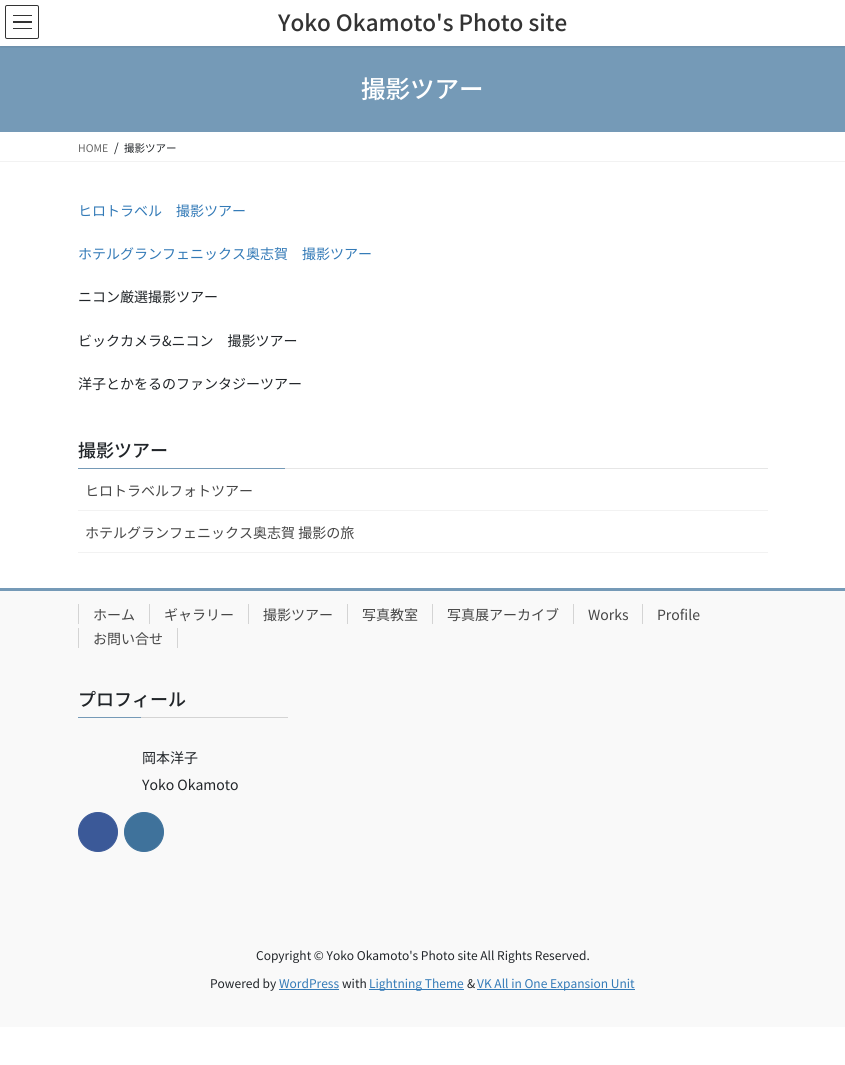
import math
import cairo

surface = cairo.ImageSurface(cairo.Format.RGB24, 845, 1065)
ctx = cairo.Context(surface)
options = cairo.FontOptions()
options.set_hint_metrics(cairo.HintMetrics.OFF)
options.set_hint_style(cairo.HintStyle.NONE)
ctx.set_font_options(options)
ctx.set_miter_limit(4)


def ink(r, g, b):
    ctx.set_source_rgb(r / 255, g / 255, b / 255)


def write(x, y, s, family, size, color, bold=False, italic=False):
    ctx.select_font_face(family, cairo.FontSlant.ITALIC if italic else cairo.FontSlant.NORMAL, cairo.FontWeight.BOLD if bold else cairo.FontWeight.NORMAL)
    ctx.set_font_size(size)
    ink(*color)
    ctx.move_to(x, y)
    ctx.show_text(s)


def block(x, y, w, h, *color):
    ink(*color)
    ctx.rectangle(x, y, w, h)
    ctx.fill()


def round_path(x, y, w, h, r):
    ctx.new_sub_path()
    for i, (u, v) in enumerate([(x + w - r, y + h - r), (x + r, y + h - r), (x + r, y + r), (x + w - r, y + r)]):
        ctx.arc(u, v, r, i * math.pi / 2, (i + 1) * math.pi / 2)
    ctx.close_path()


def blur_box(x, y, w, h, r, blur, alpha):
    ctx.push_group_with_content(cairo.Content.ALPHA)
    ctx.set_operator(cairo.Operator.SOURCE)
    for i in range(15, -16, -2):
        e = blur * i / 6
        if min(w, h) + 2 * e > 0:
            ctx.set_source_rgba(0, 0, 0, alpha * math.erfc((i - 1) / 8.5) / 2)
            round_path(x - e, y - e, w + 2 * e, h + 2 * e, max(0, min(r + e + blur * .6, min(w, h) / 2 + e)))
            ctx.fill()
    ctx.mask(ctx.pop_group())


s1 = dict(family="Noto Sans JP Medium", size=22.4, color=(51, 51, 51))
s2 = dict(family="Noto Sans JP Medium", size=24.5, color=(255, 255, 255))
s3 = dict(family="Noto Sans JP", size=10.5, color=(102, 102, 102))
s4 = dict(family="Noto Sans JP", size=12, color=(33, 37, 41))
s5 = dict(family="Noto Sans JP", size=10.5, color=(33, 37, 41))
s6 = dict(family="Noto Sans JP", size=14, color=(51, 122, 183))
s7 = dict(family="Noto Sans JP", size=14, color=(33, 37, 41))
s8 = dict(family="Noto Sans JP Medium", size=18, color=(33, 37, 41))
s9 = dict(family="Noto Sans JP", size=14, color=(70, 70, 70))
s10 = dict(family="Noto Sans JP", size=12, color=(51, 122, 183))

ink(255, 255, 255)
ctx.paint()
block(0, 46, 845, 86, 117, 154, 183)
ctx.save()
ctx.rectangle(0, 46, 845, 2)
ctx.clip()
ink(0, 0, 0)
blur_box(0, 1, 845, 46, 0, 1.5, 0.1)
ctx.restore()
block(13, 15, 19, 1, 51, 51, 51)
block(13, 21, 19, 2, 51, 51, 51)
block(13, 28, 19, 1, 51, 51, 51)
round_path(5.5, 5.5, 33, 33, 1.5)
ctx.set_line_width(1)
ctx.stroke()
write(278, 31, "Yoko Okamoto's Photo site", **s1)
write(361, 98, "撮影ツアー", **s2)
block(0, 161, 845, 1, 242, 242, 242)
write(78, 152, "HOME", **s3)
write(114, 152, "/", **s4)
write(124, 152, "撮影ツアー", **s5)
write(78, 216, "ヒロトラベル　撮影ツアー", **s6)
write(78, 259, "ホテルグランフェニックス奥志賀　撮影ツアー", **s6)
write(78, 302, "ニコン厳選撮影ツアー", **s7)
write(78, 346, "ビックカメラ&ニコン　撮影ツアー", **s7)
write(78, 389, "洋子とかをるのファンタジーツアー", **s7)
block(285, 468, 483, 1, 230, 230, 230)
write(78, 457, "撮影ツアー", **s8)
block(78, 468, 207, 1, 117, 154, 183)
block(78, 510, 690, 1, 242, 242, 242)
write(85, 496, "ヒロトラベルフォトツアー", **s9)
block(78, 552, 690, 1, 242, 242, 242)
write(85, 538, "ホテルグランフェニックス奥志賀 撮影の旅", **s9)
block(0, 591, 845, 436, 249, 249, 249)
block(0, 588, 845, 3, 117, 154, 183)
write(93, 620, "ホーム", **s9)
block(78, 604, 1, 20, 212, 212, 212)
write(164, 620, "ギャラリー", **s9)
block(149, 604, 1, 20, 212, 212, 212)
write(263, 620, "撮影ツアー", **s9)
block(248, 604, 1, 20, 212, 212, 212)
write(362, 620, "写真教室", **s9)
block(347, 604, 1, 20, 212, 212, 212)
write(447, 620, "写真展アーカイブ", **s9)
block(432, 604, 1, 20, 212, 212, 212)
write(588, 620, "Works", **s9)
block(573, 604, 1, 20, 212, 212, 212)
write(657, 620, "Profile", **s9)
block(642, 604, 1, 20, 212, 212, 212)
write(93, 644, "お問い合せ", **s9)
block(177, 628, 1, 20, 212, 212, 212)
block(78, 628, 1, 20, 212, 212, 212)
block(141, 717, 147, 1, 212, 212, 212)
write(78, 706, "プロフィール", **s8)
block(78, 717, 63, 1, 117, 154, 183)
write(142, 763, "岡本洋子", **s7)
write(142, 790, "Yoko Okamoto", **s7)
ink(59, 89, 152)
ctx.new_path()
ctx.arc(98, 832, 19.5, 0, 2 * math.pi)
ctx.fill_preserve()
ctx.stroke()
ink(63, 114, 155)
ctx.arc(144, 832, 19.5, 0, 2 * math.pi)
ctx.fill_preserve()
ctx.stroke()
write(256, 960, "Copyright © Yoko Okamoto's Photo site All Rights Reserved.", **s4)
write(210, 988, "Powered by", **s4)
write(279, 988, "WordPress", **s10)
block(279, 989, 60, 1, 51, 122, 183)
write(342, 988, "with", **s4)
block(369, 989, 95, 1, 51, 122, 183)
write(369, 988, "Lightning Theme", **s10)
write(467, 988, "&", **s4)
block(477, 989, 158, 1, 51, 122, 183)
write(477, 988, "VK All in One Expansion Unit", **s10)
surface.write_to_png("screenshot.png")
